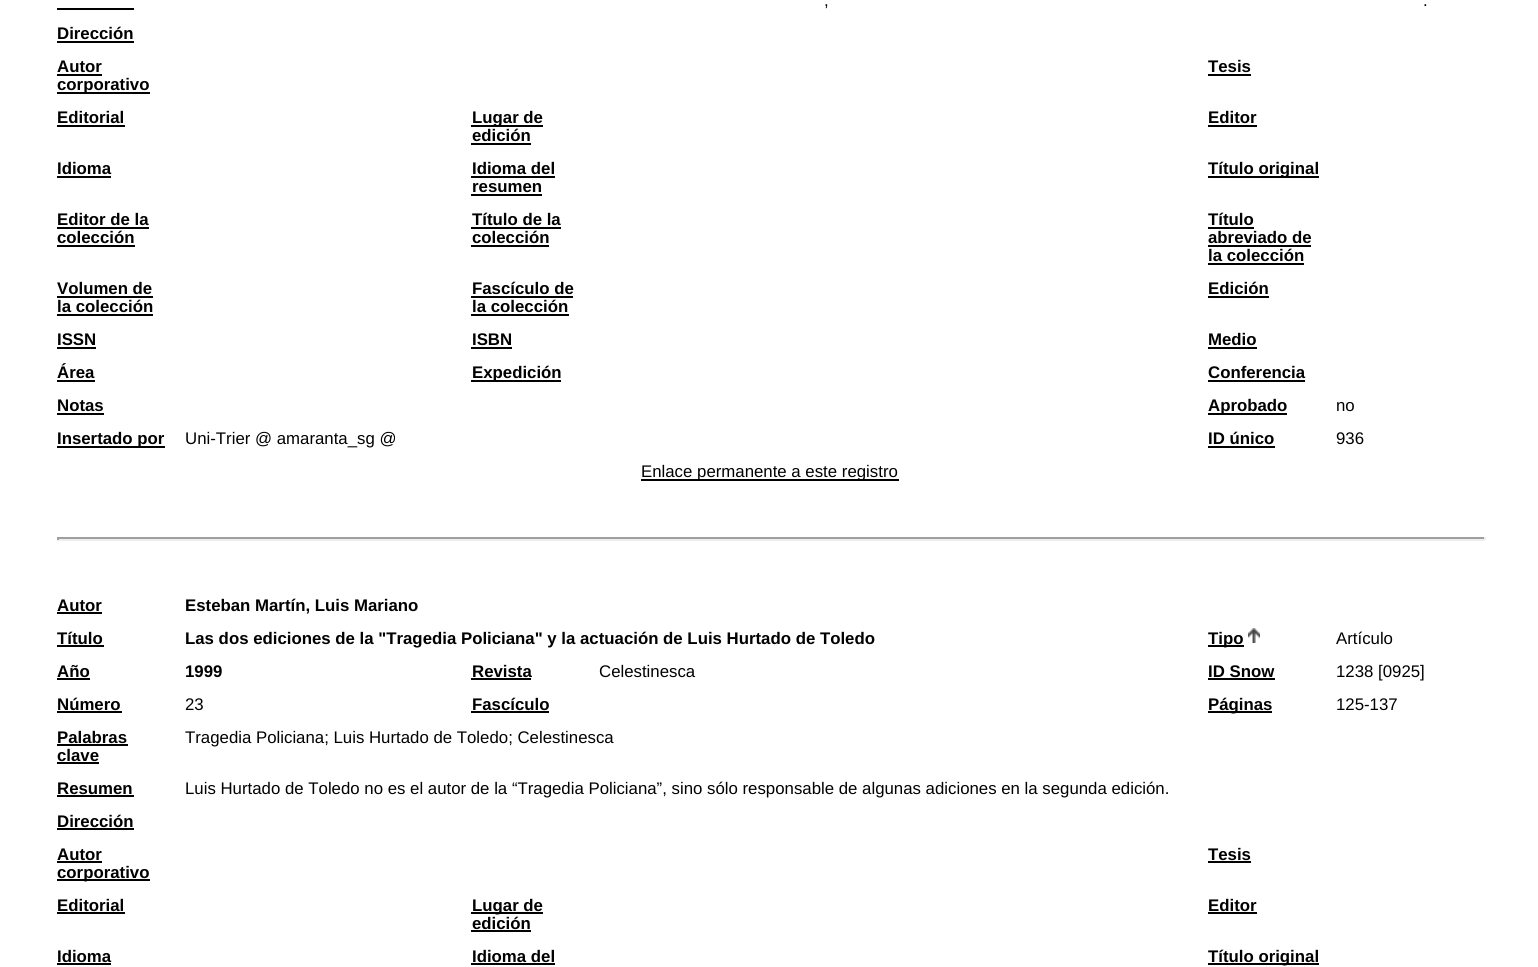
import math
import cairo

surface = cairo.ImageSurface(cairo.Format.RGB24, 1538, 967)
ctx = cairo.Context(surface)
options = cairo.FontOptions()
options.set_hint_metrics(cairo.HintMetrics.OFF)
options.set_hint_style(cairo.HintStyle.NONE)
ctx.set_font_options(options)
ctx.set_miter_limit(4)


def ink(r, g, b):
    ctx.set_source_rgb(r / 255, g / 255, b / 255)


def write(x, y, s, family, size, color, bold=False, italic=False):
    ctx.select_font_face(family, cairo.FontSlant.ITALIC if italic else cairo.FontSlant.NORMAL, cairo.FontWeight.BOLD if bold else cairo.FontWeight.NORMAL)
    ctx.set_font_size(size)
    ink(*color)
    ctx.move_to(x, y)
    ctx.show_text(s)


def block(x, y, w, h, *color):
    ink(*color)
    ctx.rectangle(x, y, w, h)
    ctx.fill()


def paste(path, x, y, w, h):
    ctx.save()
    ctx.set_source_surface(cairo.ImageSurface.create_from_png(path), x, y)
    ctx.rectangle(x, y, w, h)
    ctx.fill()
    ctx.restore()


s1 = dict(family="Liberation Sans", size=16.8, color=(0, 0, 0))
s2 = dict(family="Liberation Sans", size=16.8, color=(0, 0, 0), bold=True)

ink(255, 255, 255)
ctx.paint()
block(57, 8, 77, 2, 0, 0, 0)
write(824, 6, ",", **s1)
write(1423, 6, ".", **s1)
write(57, 39, "Dirección", **s2)
block(57, 41, 77, 2, 0, 0, 0)
write(57, 72, "Autor", **s2)
block(57, 74, 45, 2, 0, 0, 0)
block(57, 92, 93, 2, 0, 0, 0)
write(57, 90, "corporativo", **s2)
write(1208, 72, "Tesis", **s2)
block(1208, 74, 43, 2, 0, 0, 0)
write(57, 123, "Editorial", **s2)
block(57, 125, 68, 2, 0, 0, 0)
block(471, 125, 72, 2, 0, 0, 0)
write(472, 123, "Lugar de", **s2)
write(472, 141, "edición", **s2)
block(471, 143, 60, 2, 0, 0, 0)
write(1208, 123, "Editor", **s2)
block(1208, 125, 49, 2, 0, 0, 0)
write(57, 174, "Idioma", **s2)
block(57, 176, 54, 2, 0, 0, 0)
write(472, 174, "Idioma del", **s2)
block(471, 176, 84, 2, 0, 0, 0)
write(472, 192, "resumen", **s2)
block(471, 194, 71, 2, 0, 0, 0)
block(1208, 176, 111, 2, 0, 0, 0)
write(1208, 174, "Título original", **s2)
write(57, 225, "Editor de la", **s2)
block(57, 227, 92, 2, 0, 0, 0)
write(57, 243, "colección", **s2)
block(57, 245, 78, 2, 0, 0, 0)
write(472, 225, "Título de la", **s2)
block(471, 227, 90, 2, 0, 0, 0)
write(472, 243, "colección", **s2)
block(471, 245, 78, 2, 0, 0, 0)
write(1208, 225, "Título", **s2)
block(1208, 227, 46, 2, 0, 0, 0)
write(1208, 243, "abreviado de", **s2)
block(1208, 245, 103, 2, 0, 0, 0)
write(1208, 261, "la colección", **s2)
block(1208, 263, 96, 2, 0, 0, 0)
write(57, 294, "Volumen de", **s2)
block(57, 296, 96, 2, 0, 0, 0)
write(57, 312, "la colección", **s2)
block(57, 314, 96, 2, 0, 0, 0)
write(472, 294, "Fascículo de", **s2)
block(471, 296, 102, 2, 0, 0, 0)
write(472, 312, "la colección", **s2)
block(471, 314, 98, 2, 0, 0, 0)
write(1208, 294, "Edición", **s2)
block(1208, 296, 61, 2, 0, 0, 0)
write(57, 345, "ISSN", **s2)
block(57, 347, 39, 2, 0, 0, 0)
write(472, 345, "ISBN", **s2)
block(471, 347, 41, 2, 0, 0, 0)
write(1208, 345, "Medio", **s2)
block(1208, 347, 49, 2, 0, 0, 0)
write(57, 378, "Área", **s2)
block(57, 380, 38, 2, 0, 0, 0)
block(471, 380, 90, 2, 0, 0, 0)
write(472, 378, "Expedición", **s2)
write(1208, 378, "Conferencia", **s2)
block(1208, 380, 97, 2, 0, 0, 0)
write(57, 411, "Notas", **s2)
block(57, 413, 47, 2, 0, 0, 0)
block(1208, 413, 79, 2, 0, 0, 0)
write(1208, 411, "Aprobado", **s2)
write(1336, 411, "no", **s1)
block(57, 446, 108, 2, 0, 0, 0)
write(57, 444, "Insertado por", **s2)
write(185, 444, "Uni-Trier @ amaranta_sg @", **s1)
write(1208, 444, "ID único", **s2)
block(1208, 446, 67, 2, 0, 0, 0)
write(1336, 444, "936", **s1)
block(641, 479, 258, 2, 0, 0, 0)
write(641, 477, "Enlace permanente a este registro", **s1)
block(57, 537, 1428, 2, 159, 159, 159)
block(1484, 537, 2, 3, 238, 238, 238)
block(57, 539, 1428, 2, 238, 238, 238)
block(57, 537, 2, 3, 159, 159, 159)
write(57, 611, "Autor", **s2)
block(57, 612, 45, 2, 0, 0, 0)
write(185, 611, "Esteban Martín, Luis Mariano", **s2)
write(57, 644, "Título", **s2)
block(57, 645, 47, 2, 0, 0, 0)
write(185, 644, "Las dos ediciones de la \"Tragedia Policiana\" y la actuación de Luis Hurtado de Toledo", **s2)
block(1208, 645, 36, 2, 0, 0, 0)
write(1208, 644, "Tipo", **s2)
paste("pic1.png", 1248, 628, 12, 15)
write(1336, 644, "Artículo", **s1)
write(57, 677, "Año", **s2)
block(57, 678, 33, 2, 0, 0, 0)
write(185, 677, "1999", **s2)
write(472, 677, "Revista", **s2)
block(471, 678, 60, 2, 0, 0, 0)
write(599, 677, "Celestinesca", **s1)
write(1208, 677, "ID Snow", **s2)
block(1208, 678, 67, 2, 0, 0, 0)
write(1336, 677, "1238 [0925]", **s1)
write(57, 710, "Número", **s2)
block(57, 711, 65, 2, 0, 0, 0)
write(185, 710, "23", **s1)
write(472, 710, "Fascículo", **s2)
block(471, 711, 78, 2, 0, 0, 0)
block(1208, 711, 64, 2, 0, 0, 0)
write(1208, 710, "Páginas", **s2)
write(1336, 710, "125-137", **s1)
write(57, 743, "Palabras", **s2)
block(57, 744, 71, 2, 0, 0, 0)
write(57, 761, "clave", **s2)
block(57, 762, 42, 2, 0, 0, 0)
write(185, 743, "Tragedia Policiana; Luis Hurtado de Toledo; Celestinesca", **s1)
write(57, 794, "Resumen", **s2)
block(57, 795, 77, 2, 0, 0, 0)
write(185, 794, "Luis Hurtado de Toledo no es el autor de la “Tragedia Policiana”, sino sólo responsable de algunas adiciones en la segunda edición.", **s1)
write(57, 827, "Dirección", **s2)
block(57, 828, 77, 2, 0, 0, 0)
write(57, 860, "Autor", **s2)
block(57, 861, 45, 2, 0, 0, 0)
block(57, 879, 93, 2, 0, 0, 0)
write(57, 878, "corporativo", **s2)
write(1208, 860, "Tesis", **s2)
block(1208, 861, 43, 2, 0, 0, 0)
write(57, 911, "Editorial", **s2)
block(57, 912, 68, 2, 0, 0, 0)
block(471, 912, 72, 2, 0, 0, 0)
write(472, 911, "Lugar de", **s2)
write(472, 929, "edición", **s2)
block(471, 930, 60, 2, 0, 0, 0)
write(1208, 911, "Editor", **s2)
block(1208, 912, 49, 2, 0, 0, 0)
write(57, 962, "Idioma", **s2)
block(57, 963, 54, 2, 0, 0, 0)
write(472, 962, "Idioma del", **s2)
block(471, 963, 84, 2, 0, 0, 0)
block(1208, 963, 111, 2, 0, 0, 0)
write(1208, 962, "Título original", **s2)
surface.write_to_png("screenshot.png")
